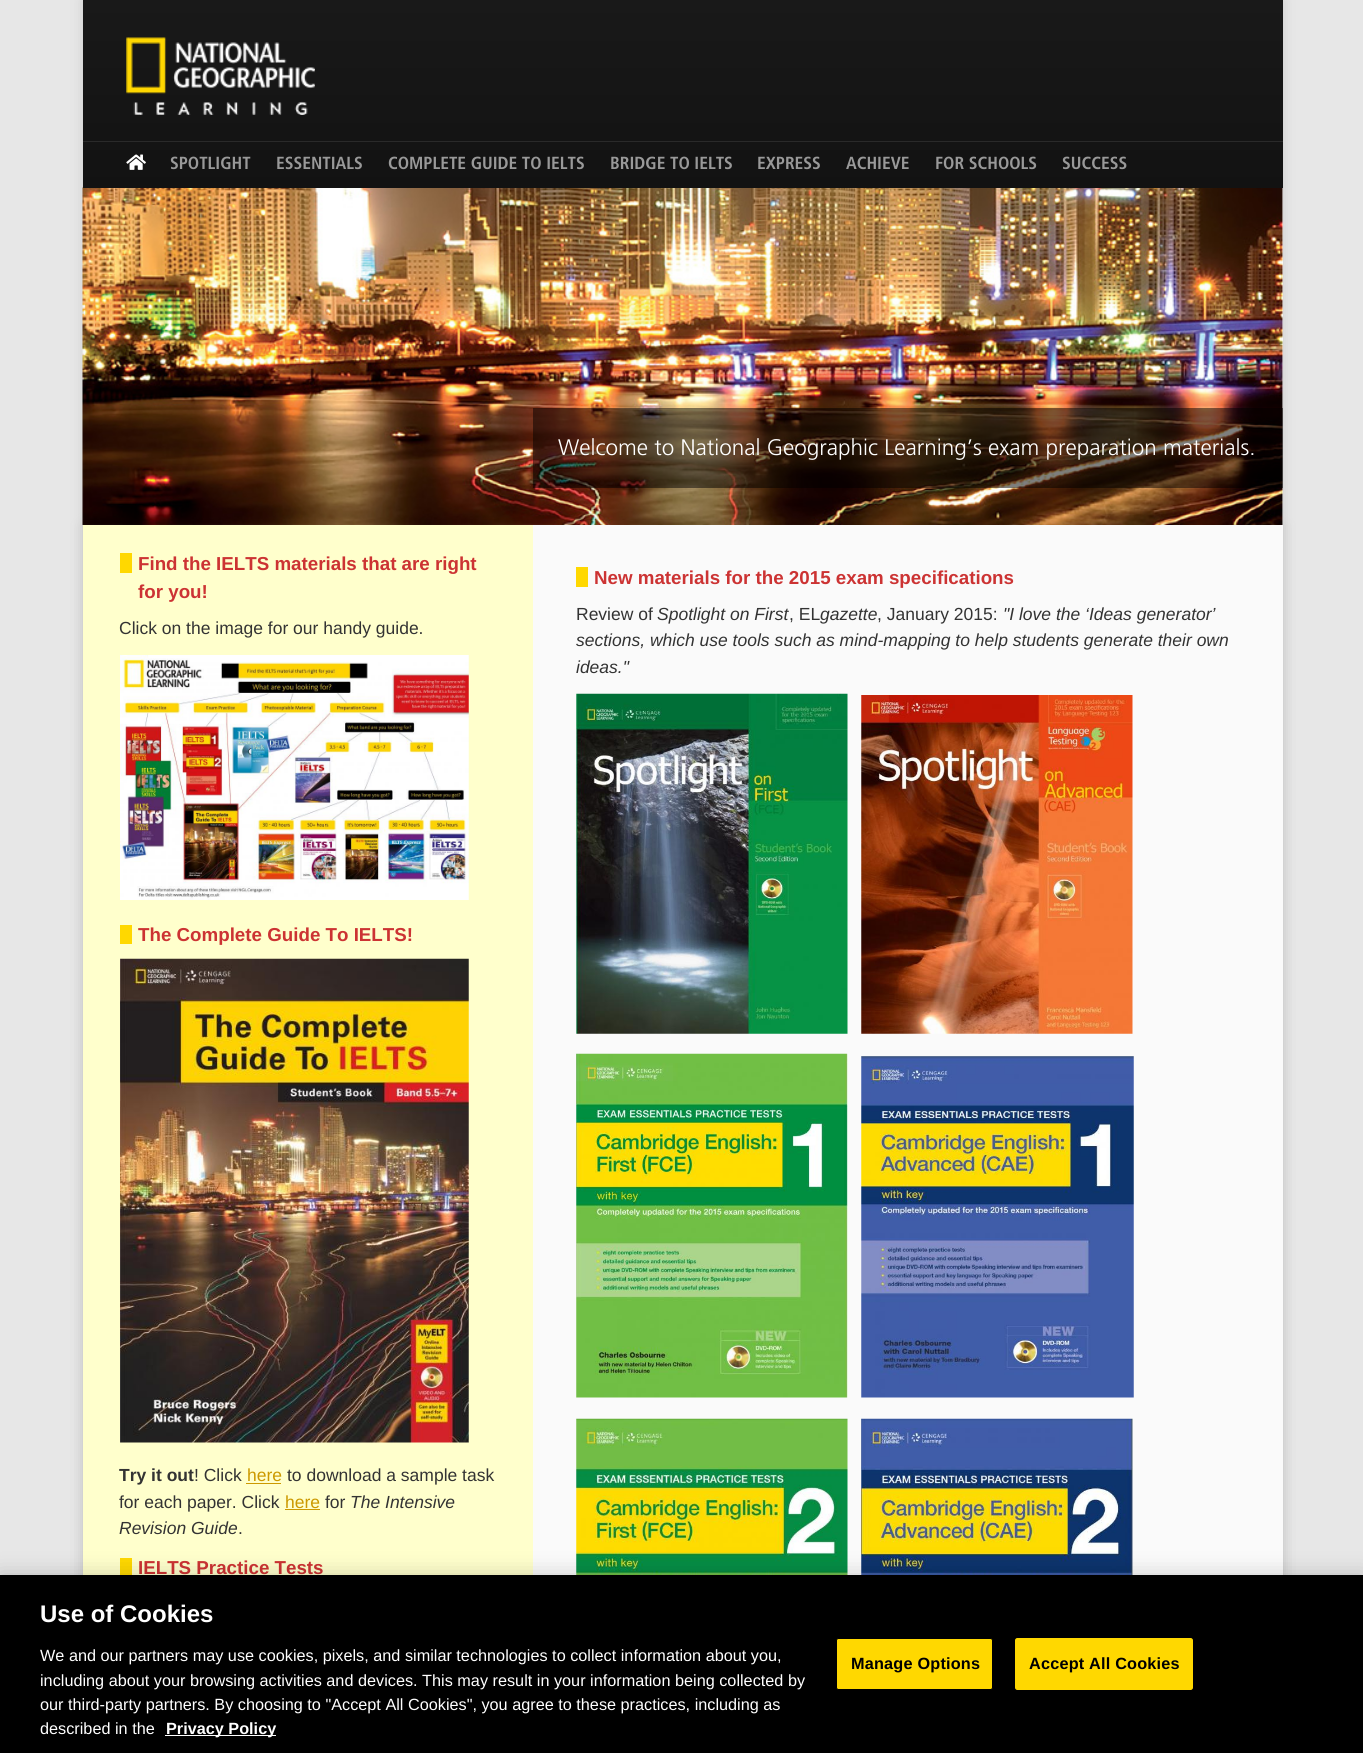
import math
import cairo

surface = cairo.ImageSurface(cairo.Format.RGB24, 1363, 1753)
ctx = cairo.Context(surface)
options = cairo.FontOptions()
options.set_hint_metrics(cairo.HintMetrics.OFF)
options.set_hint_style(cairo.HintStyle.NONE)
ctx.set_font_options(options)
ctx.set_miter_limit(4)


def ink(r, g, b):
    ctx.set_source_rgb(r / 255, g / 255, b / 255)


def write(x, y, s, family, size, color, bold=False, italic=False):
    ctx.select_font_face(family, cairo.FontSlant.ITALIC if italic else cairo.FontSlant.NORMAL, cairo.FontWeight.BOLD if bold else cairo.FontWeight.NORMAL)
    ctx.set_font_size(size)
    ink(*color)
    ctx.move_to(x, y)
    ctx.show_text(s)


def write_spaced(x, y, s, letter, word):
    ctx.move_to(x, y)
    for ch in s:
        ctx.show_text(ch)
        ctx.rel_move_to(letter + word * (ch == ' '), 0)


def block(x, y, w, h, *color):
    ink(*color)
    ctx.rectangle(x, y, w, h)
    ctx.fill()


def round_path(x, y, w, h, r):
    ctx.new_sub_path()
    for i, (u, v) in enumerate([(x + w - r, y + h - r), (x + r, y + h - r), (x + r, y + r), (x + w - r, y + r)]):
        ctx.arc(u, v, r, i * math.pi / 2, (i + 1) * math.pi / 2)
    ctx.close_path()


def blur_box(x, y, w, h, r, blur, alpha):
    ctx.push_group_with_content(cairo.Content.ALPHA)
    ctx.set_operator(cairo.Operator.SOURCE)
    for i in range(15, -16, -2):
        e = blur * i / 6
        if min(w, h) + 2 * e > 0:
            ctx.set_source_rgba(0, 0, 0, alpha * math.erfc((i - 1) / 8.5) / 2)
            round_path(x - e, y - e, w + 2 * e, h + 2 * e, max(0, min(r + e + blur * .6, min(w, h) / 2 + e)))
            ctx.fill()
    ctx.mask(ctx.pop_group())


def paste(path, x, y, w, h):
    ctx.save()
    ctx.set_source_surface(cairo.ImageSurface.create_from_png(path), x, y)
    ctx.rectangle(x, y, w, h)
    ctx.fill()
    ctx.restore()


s1 = dict(family="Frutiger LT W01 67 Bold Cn", size=17.5, color=(153, 153, 153), bold=True)
s2 = dict(family="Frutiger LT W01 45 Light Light", size=22.5, color=(255, 255, 255))
s3 = dict(family="Liberation Sans", size=18.75, color=(204, 51, 51), bold=True)
s4 = dict(family="Liberation Sans", size=17.5, color=(51, 51, 51))
s5 = dict(family="Liberation Sans", size=17.5, color=(51, 51, 51), bold=True)
s6 = dict(family="Liberation Sans", size=17.5, color=(204, 153, 0))
s7 = dict(family="Liberation Sans", size=17.5, color=(51, 51, 51), italic=True)
s8 = dict(family="Liberation Sans", size=24, color=(255, 255, 255), bold=True)
s9 = dict(family="Liberation Sans", size=16.25, color=(255, 255, 255))
s10 = dict(family="Liberation Sans", size=16.25, color=(255, 255, 255), bold=True)

ink(231, 231, 231)
ctx.paint()
ink(204, 204, 204)
blur_box(83, 0, 1200, 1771, 0, 6, 1)
block(1282, 188, 1, 337, 255, 255, 255)
ink(204, 204, 204)
blur_box(83, 525, 1200, 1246, 0, 6, 1)
paste("pic3.png", 82, 187, 1201, 338)
gradient = cairo.LinearGradient(83, 0, 83, 188)
gradient.add_color_stop_rgba(0, 0.098, 0.098, 0.098, 1)
gradient.add_color_stop_rgba(1, 0.071, 0.071, 0.071, 1)
ctx.set_source(gradient)
ctx.rectangle(83, 0, 1200, 188)
ctx.fill()
paste("pic1.png", 126, 37, 189, 78)
block(83, 141, 1200, 1, 42, 42, 42)
paste("pic2.png", 126, 154, 20, 16)
write(170, 169, "SPOTLIGHT", **s1)
write(276, 169, "ESSENTIALS", **s1)
write(388, 169, "COMPLETE GUIDE TO IELTS", **s1)
write(610, 169, "BRIDGE TO IELTS", **s1)
write(757, 169, "EXPRESS", **s1)
write(846, 169, "ACHIEVE", **s1)
write(935, 169, "FOR SCHOOLS", **s1)
write(1062, 169, "SUCCESS", **s1)
ctx.set_source_rgba(0, 0, 0, 0.5)
ctx.rectangle(533, 408, 750, 80)
ctx.fill()
write(558, 455, "Welcome to National Geographic Learning’s exam preparation materials.", **s2)
block(533, 525, 750, 1050, 250, 250, 250)
block(83, 525, 450, 1050, 255, 255, 204)
block(120, 553, 12, 20, 255, 216, 0)
write(138, 570, "Find the IELTS materials that are right", **s3)
write(138, 598, "for you!", **s3)
write(119, 634, "Click on the image for our handy guide.", **s4)
paste("pic4.png", 120, 655, 349, 245)
block(120, 925, 12, 19, 255, 216, 0)
write(138, 941, "The Complete Guide To IELTS!", **s3)
paste("pic5.png", 120, 958, 349, 485)
write(119, 1481, "Try it out", **s5)
write(194, 1481, "! Click", **s4)
write(247, 1481, "here", **s6)
block(246, 1483, 35, 1, 204, 153, 0)
write(287, 1481, "to download a sample task", **s4)
write(119, 1508, "for each paper. Click", **s4)
write(285, 1508, "here", **s6)
block(285, 1509, 35, 1, 204, 153, 0)
write(325, 1508, "for", **s4)
write(350, 1508, "The Intensive", **s7)
write(119, 1534, "Revision Guide", **s7)
write(238, 1534, ".", **s4)
block(120, 1558, 12, 17, 255, 216, 0)
write(138, 1574, "IELTS Practice Tests", **s3)
block(576, 567, 12, 20, 255, 216, 0)
write(594, 584, "New materials for the 2015 exam specifications", **s3)
write(576, 620, "Review of", **s4)
write(657, 620, "Spotlight on First", **s7)
write(789, 620, ", EL", **s4)
write(820, 620, "gazette", **s7)
write(877, 620, ", January 2015:", **s4)
write(1003, 620, "\"I love the ‘Ideas generator’", **s7)
write(576, 646, "sections, which use tools such as mind-mapping to help students generate their own", **s7)
write(576, 673, "ideas.\"", **s7)
paste("pic6.png", 576, 693, 272, 341)
paste("pic7.png", 861, 695, 272, 339)
paste("pic8.png", 576, 1053, 272, 345)
paste("pic9.png", 861, 1056, 273, 342)
paste("pic10.png", 576, 1418, 272, 157)
paste("pic11.png", 861, 1418, 272, 157)
ink(0, 0, 0)
blur_box(0, 1575, 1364, 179, 0, 11, 0.2)
block(0, 1575, 1363, 178, 0, 0, 0)
write(40, 1622, "Use of Cookies", **s8)
write(40, 1661, "We and our partners may use cookies, pixels, and similar technologies to collect information about you,", **s9)
write(40, 1686, "including about your browsing activities and devices. This may result in your information being collected by", **s9)
write(40, 1710, "our third-party partners. By choosing to \"Accept All Cookies\", you agree to these practices, including as", **s9)
write(40, 1734, "described in the", **s9)
block(165, 1735, 111, 1, 255, 255, 255)
write(166, 1734, "Privacy Policy", **s10)
ink(255, 216, 0)
round_path(836.5, 1638.5, 156, 51, 2)
ctx.fill_preserve()
ink(0, 0, 0)
ctx.set_line_width(1)
ctx.stroke()
write_spaced(851, 1669, "Manage Options", 0.2, 0)
ink(255, 216, 0)
round_path(1015.5, 1638.5, 177, 51, 2)
ctx.fill_preserve()
ctx.stroke()
ink(0, 0, 0)
write_spaced(1029, 1669, "Accept All Cookies", 0.2, 0)
surface.write_to_png("screenshot.png")
